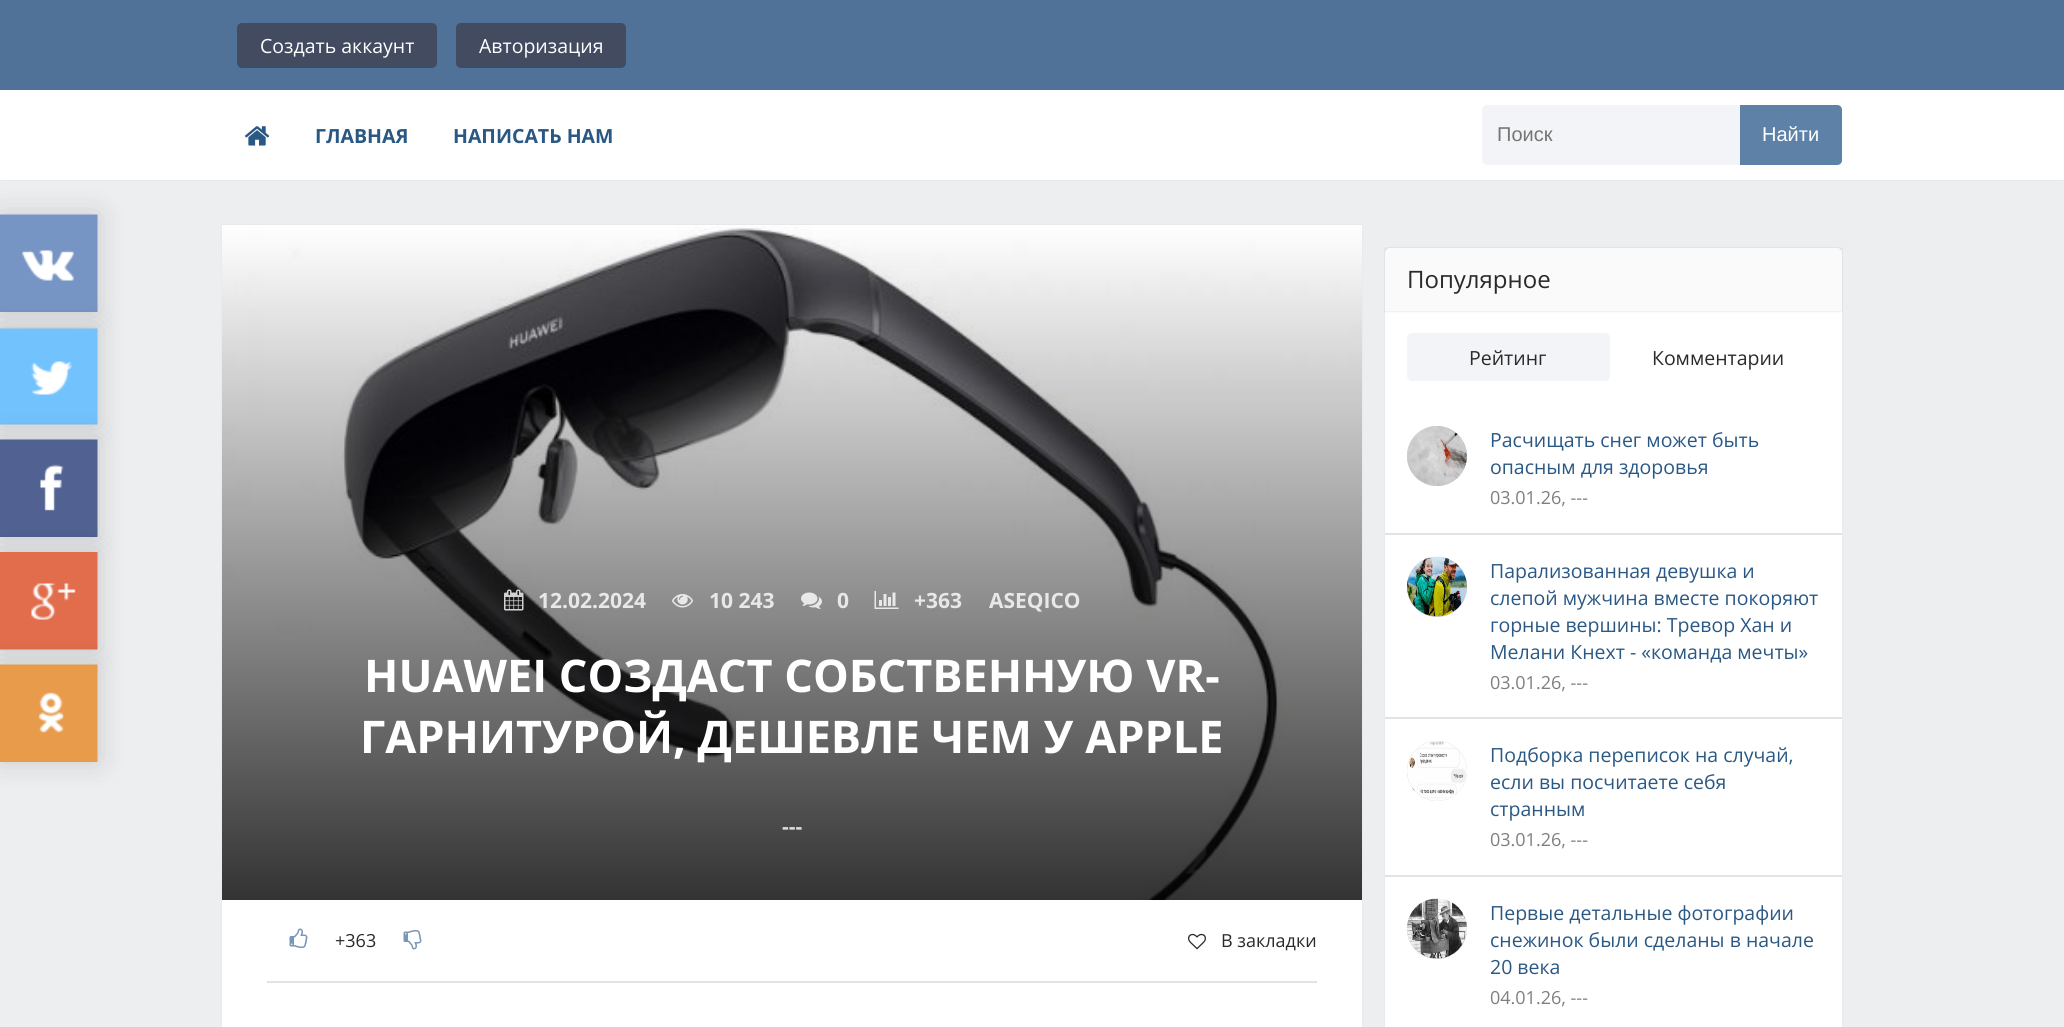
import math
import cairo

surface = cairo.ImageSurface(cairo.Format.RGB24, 2064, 1027)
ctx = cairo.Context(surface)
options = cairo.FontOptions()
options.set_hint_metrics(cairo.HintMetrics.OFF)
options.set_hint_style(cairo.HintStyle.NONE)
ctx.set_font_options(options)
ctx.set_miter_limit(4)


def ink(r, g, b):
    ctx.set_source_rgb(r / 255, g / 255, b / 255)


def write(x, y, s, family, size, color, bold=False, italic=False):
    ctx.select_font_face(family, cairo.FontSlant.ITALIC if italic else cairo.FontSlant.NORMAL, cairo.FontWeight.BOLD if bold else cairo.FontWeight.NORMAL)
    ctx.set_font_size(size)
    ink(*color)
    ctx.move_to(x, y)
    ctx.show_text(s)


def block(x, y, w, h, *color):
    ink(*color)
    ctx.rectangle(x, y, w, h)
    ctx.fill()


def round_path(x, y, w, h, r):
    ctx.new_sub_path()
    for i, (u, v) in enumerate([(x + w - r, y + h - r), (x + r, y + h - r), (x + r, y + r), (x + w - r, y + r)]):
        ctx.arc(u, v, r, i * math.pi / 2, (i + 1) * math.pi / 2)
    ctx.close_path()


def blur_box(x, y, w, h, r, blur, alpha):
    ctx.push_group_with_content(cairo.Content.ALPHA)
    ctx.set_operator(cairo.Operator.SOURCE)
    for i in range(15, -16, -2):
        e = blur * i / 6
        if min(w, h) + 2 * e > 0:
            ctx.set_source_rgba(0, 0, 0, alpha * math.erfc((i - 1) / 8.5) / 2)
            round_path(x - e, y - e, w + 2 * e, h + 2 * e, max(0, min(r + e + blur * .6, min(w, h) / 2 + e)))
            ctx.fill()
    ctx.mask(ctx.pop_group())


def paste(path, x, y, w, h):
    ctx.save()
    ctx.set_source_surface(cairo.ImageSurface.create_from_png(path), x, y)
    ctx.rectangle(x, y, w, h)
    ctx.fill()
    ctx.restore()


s1 = dict(family="Open Sans", size=19.5, color=(255, 255, 255))
s2 = dict(family="Open Sans", size=19.5, color=(42, 88, 133), bold=True)
s3 = dict(family="Liberation Sans", size=20, color=(117, 117, 117))
s4 = dict(family="Liberation Sans", size=20, color=(255, 255, 255))
s5 = dict(family="Open Sans", size=21, color=(232, 232, 232), bold=True)
s6 = dict(family="Open Sans", size=45, color=(255, 255, 255), bold=True)
s7 = dict(family="Open Sans", size=21, color=(219, 219, 219), bold=True)
s8 = dict(family="Open Sans", size=18, color=(42, 42, 42))
s9 = dict(family="Open Sans", size=24, color=(42, 42, 42))
s10 = dict(family="Open Sans", size=19.5, color=(42, 42, 42))
s11 = dict(family="Open Sans", size=19.5, color=(42, 88, 133))
s12 = dict(family="Open Sans", size=18, color=(127, 127, 127))

ink(237, 238, 240)
ctx.paint()
ink(3, 11, 17)
blur_box(0, 0, 2064, 180, 0, 1, 0.07)
block(0, 90, 2064, 90, 255, 255, 255)
ink(0, 0, 0)
blur_box(0, 215, 98, 97, 0, 15, 0.15)
paste("pic1.png", 0, 214, 98, 98)
blur_box(0, 327, 98, 98, 0, 15, 0.15)
paste("pic2.png", 0, 327, 98, 98)
blur_box(0, 440, 98, 97, 0, 15, 0.15)
paste("pic3.png", 0, 439, 98, 98)
blur_box(0, 552, 98, 98, 0, 15, 0.15)
paste("pic4.png", 0, 552, 98, 98)
blur_box(0, 665, 98, 97, 0, 15, 0.15)
paste("pic5.png", 0, 664, 98, 98)
block(0, 0, 2064, 90, 80, 114, 153)
ink(66, 75, 95)
round_path(237, 23, 200, 45, 5)
ctx.fill()
write(260, 53, "Создать аккаунт", **s1)
ink(66, 75, 95)
round_path(456, 23, 170, 45, 5)
ctx.fill()
write(479, 53, "Авторизация", **s1)
paste("pic6.png", 245, 126, 25, 20)
write(315, 143, "ГЛАВНАЯ", **s2)
write(453, 143, "НАПИСАТЬ НАМ", **s2)
ink(242, 244, 247)
round_path(1482, 105, 360, 60, 5)
ctx.fill()
write(1497, 141, "Поиск", **s3)
ink(94, 129, 168)
ctx.new_path()
ctx.move_to(1740, 105)
ctx.line_to(1837, 105)
ctx.curve_to(1840, 105, 1842, 107, 1842, 110)
ctx.line_to(1842, 160)
ctx.curve_to(1842, 163, 1840, 165, 1837, 165)
ctx.line_to(1740, 165)
ctx.close_path()
ctx.fill()
write(1762, 141, "Найти", **s4)
ink(3, 11, 17)
blur_box(222, 225, 1140, 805, 0, 1, 0.07)
block(222, 900, 1140, 127, 255, 255, 255)
paste("pic7.png", 222, 225, 1140, 675)
paste("pic8.png", 504, 589, 20, 22)
write(538, 608, "12.02.2024", **s5)
paste("pic9.png", 672, 594, 21, 14)
write(709, 608, "10 243", **s5)
paste("pic10.png", 801, 592, 21, 17)
write(837, 608, "0", **s5)
paste("pic11.png", 874, 591, 25, 18)
write(914, 608, "+363", **s5)
write(989, 608, "ASEQICO", **s5)
write(364, 692, "HUAWEI СОЗДАСТ СОБСТВЕННУЮ VR-", **s6)
write(360, 753, "ГАРНИТУРОЙ, ДЕШЕВЛЕ ЧЕМ У APPLE", **s6)
write(782, 834, "---", **s7)
block(267, 981, 1050, 2, 227, 227, 227)
paste("pic12.png", 289, 928, 19, 20)
write(335, 947, "+363", **s8)
paste("pic13.png", 403, 930, 19, 20)
paste("pic14.png", 1188, 933, 18, 17)
write(1221, 947, "В закладки", **s8)
ink(3, 11, 17)
blur_box(1385, 248, 457, 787, 5, 1, 0.07)
ink(255, 255, 255)
round_path(1385, 248, 457, 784, 5)
ctx.fill()
ink(3, 11, 17)
blur_box(1385, 248, 457, 63, 0, 1, 0.07)
blur_box(1385, 249, 457, 63, 0, 1, 0.05)
ink(250, 250, 250)
ctx.new_path()
ctx.move_to(1390, 248)
ctx.line_to(1837, 248)
ctx.curve_to(1840, 248, 1842, 250, 1842, 253)
ctx.line_to(1842, 311)
ctx.line_to(1385, 311)
ctx.line_to(1385, 253)
ctx.curve_to(1385, 250, 1387, 248, 1390, 248)
ctx.close_path()
ctx.fill()
write(1407, 288, "Популярное", **s9)
ink(242, 244, 247)
round_path(1407, 333, 203, 48, 5)
ctx.fill()
write(1469, 365, "Рейтинг", **s10)
write(1652, 365, "Комментарии", **s10)
block(1385, 533, 457, 2, 227, 227, 227)
ink(204, 204, 204)
ctx.new_path()
ctx.arc(1437, 456, 30, 0, 2 * math.pi)
ctx.fill()
paste("pic15.png", 1407, 426, 60, 60)
write(1490, 447, "Расчищать снег может быть", **s11)
write(1490, 474, "опасным для здоровья", **s11)
write(1490, 504, "03.01.26, ---", **s12)
block(1385, 717, 457, 2, 227, 227, 227)
ink(204, 204, 204)
ctx.new_path()
ctx.arc(1437, 587, 30, 0, 2 * math.pi)
ctx.fill()
paste("pic16.png", 1407, 556, 60, 61)
write(1490, 578, "Парализованная девушка и", **s11)
write(1490, 605, "слепой мужчина вместе покоряют", **s11)
write(1490, 632, "горные вершины: Тревор Хан и", **s11)
write(1490, 659, "Мелани Кнехт - «команда мечты»", **s11)
write(1490, 689, "03.01.26, ---", **s12)
block(1385, 875, 457, 2, 227, 227, 227)
ink(204, 204, 204)
ctx.new_path()
ctx.arc(1437, 771, 30, 0, 2 * math.pi)
ctx.fill()
paste("pic17.png", 1407, 741, 60, 60)
write(1490, 762, "Подборка переписок на случай,", **s11)
write(1490, 789, "если вы посчитаете себя", **s11)
write(1490, 816, "странным", **s11)
write(1490, 846, "03.01.26, ---", **s12)
ink(204, 204, 204)
ctx.new_path()
ctx.arc(1437, 929, 30, 0, 2 * math.pi)
ctx.fill()
paste("pic18.png", 1407, 898, 60, 61)
write(1490, 920, "Первые детальные фотографии", **s11)
write(1490, 947, "снежинок были сделаны в начале", **s11)
write(1490, 974, "20 века", **s11)
write(1490, 1004, "04.01.26, ---", **s12)
surface.write_to_png("screenshot.png")
